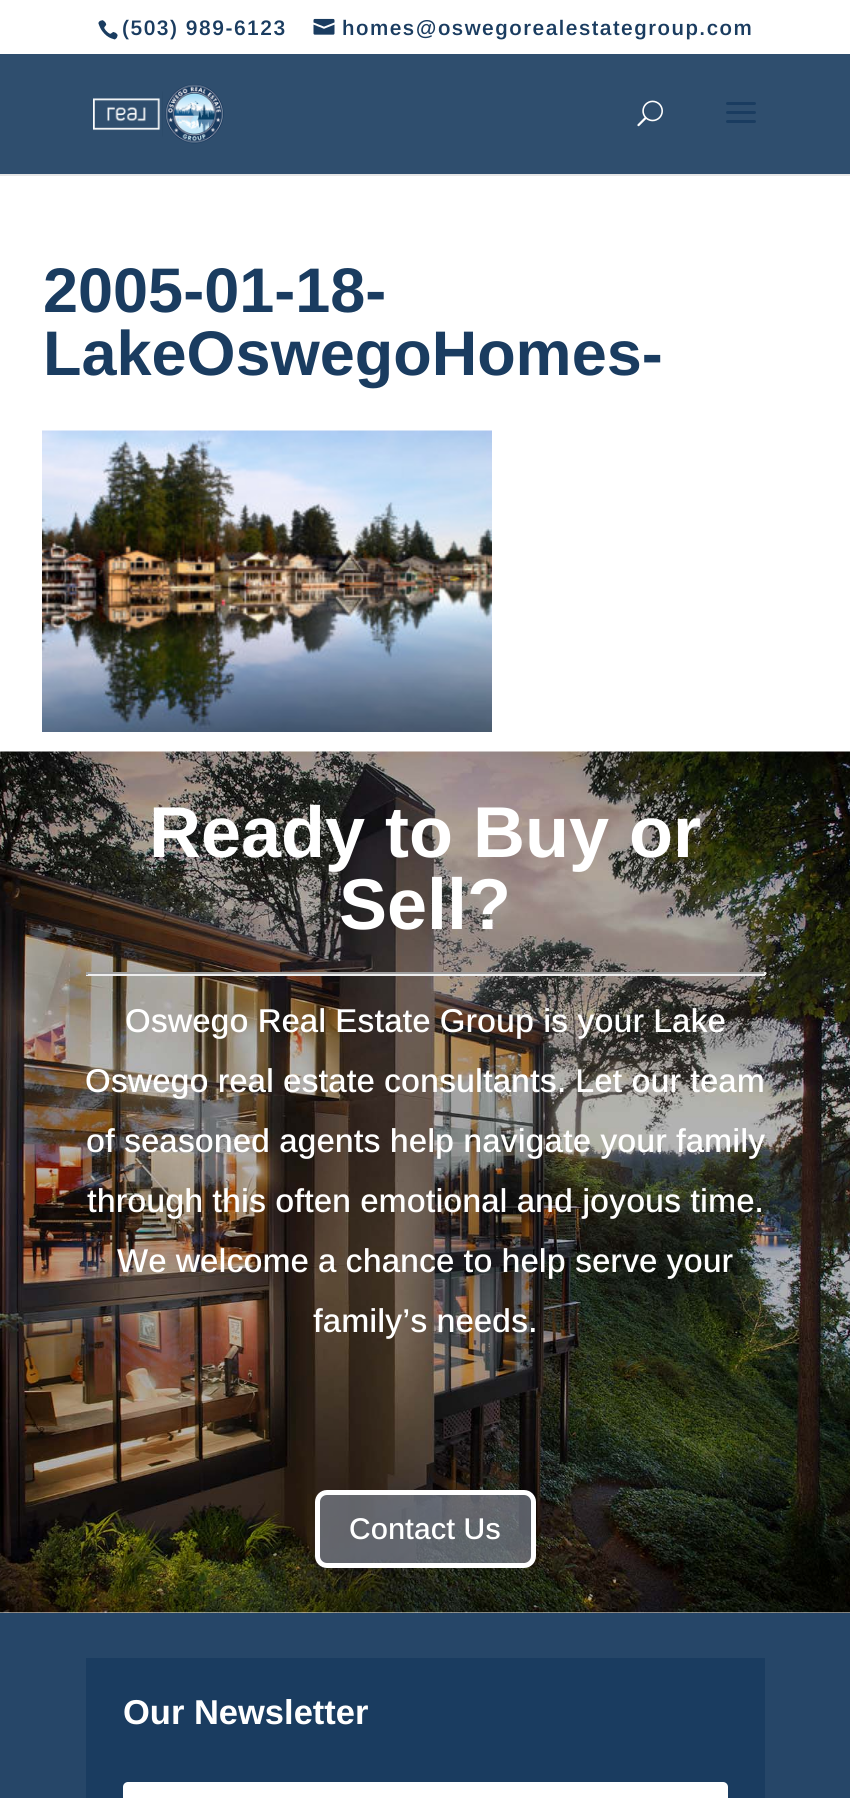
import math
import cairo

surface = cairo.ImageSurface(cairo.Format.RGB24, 850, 1798)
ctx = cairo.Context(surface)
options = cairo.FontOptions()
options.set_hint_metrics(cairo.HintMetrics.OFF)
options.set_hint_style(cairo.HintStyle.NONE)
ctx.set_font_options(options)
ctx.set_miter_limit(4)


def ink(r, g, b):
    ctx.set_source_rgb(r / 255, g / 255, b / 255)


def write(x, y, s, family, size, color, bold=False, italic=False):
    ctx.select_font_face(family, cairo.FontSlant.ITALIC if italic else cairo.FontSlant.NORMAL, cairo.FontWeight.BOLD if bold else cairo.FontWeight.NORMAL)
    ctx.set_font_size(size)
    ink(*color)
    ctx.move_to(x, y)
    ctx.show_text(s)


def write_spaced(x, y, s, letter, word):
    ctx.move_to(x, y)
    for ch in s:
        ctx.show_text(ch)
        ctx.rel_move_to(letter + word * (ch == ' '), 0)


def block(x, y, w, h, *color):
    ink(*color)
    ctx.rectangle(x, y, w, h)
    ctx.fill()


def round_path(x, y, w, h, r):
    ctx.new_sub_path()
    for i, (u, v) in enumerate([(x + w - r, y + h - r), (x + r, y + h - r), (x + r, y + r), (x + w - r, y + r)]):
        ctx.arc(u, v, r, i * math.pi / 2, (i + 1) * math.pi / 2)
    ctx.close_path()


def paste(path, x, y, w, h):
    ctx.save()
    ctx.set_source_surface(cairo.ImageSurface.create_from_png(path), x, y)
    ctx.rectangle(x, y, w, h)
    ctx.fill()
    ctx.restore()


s1 = dict(family="Liberation Sans", size=63, color=(26, 60, 96), bold=True)
s2 = dict(family="Liberation Sans", size=72, color=(255, 255, 255), bold=True)
s3 = dict(family="Arimo Medium", size=33, color=(255, 255, 255))
s4 = dict(family="Arimo Medium", size=30, color=(255, 255, 255))
s5 = dict(family="Liberation Sans", size=34.5, color=(255, 255, 255), bold=True)

ink(255, 255, 255)
ctx.paint()
paste("pic1.png", 98, 20, 20, 20)
ctx.select_font_face("Arimo SemiBold")
ctx.set_font_size(21)
ink(26, 60, 96)
write_spaced(122, 35, "(503) 989-6123", 1.5, 0)
paste("pic2.png", 313, 18, 22, 17)
write_spaced(342, 35, "homes@oswegorealestategroup.com", 1.5, 0)
ink(230, 230, 230)
ctx.new_path()
ctx.move_to(0, 174)
ctx.line_to(0, 176)
ctx.line_to(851, 176)
ctx.line_to(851, 56)
ctx.line_to(850, 56)
ctx.line_to(850, 174)
ctx.close_path()
ctx.fill()
block(0, 54, 850, 120, 47, 78, 110)
paste("pic3.png", 93, 84, 131, 60)
paste("pic4.png", 637, 100, 26, 27)
paste("pic5.png", 726, 102, 30, 21)
write(43, 312, "2005-01-18-", **s1)
write(43, 375, "LakeOswegoHomes-", **s1)
paste("pic6.png", 42, 430, 450, 302)
paste("pic7.png", 0, 751, 850, 862)
write(149, 857, "Ready to Buy or", **s2)
write(339, 929, "Sell?", **s2)
block(86, 972, 679, 2, 159, 159, 159)
block(764, 972, 2, 3, 238, 238, 238)
block(86, 974, 679, 2, 238, 238, 238)
block(86, 972, 2, 3, 159, 159, 159)
write(125, 1032, "Oswego Real Estate Group is your Lake", **s3)
write(85, 1092, "Oswego real estate consultants. Let our team", **s3)
write(86, 1152, "of seasoned agents help navigate your family", **s3)
write(87, 1212, "through this often emotional and joyous time.", **s3)
write(117, 1272, "We welcome a chance to help serve your", **s3)
write(313, 1332, "family’s needs.", **s3)
ctx.set_source_rgba(0.49, 0.518, 0.569, 0.7)
round_path(317.5, 1492.5, 216, 73, 9.5)
ctx.fill_preserve()
ink(255, 255, 255)
ctx.set_line_width(5)
ctx.stroke()
write(349, 1539, "Contact Us", **s4)
block(0, 1613, 850, 185, 38, 70, 104)
block(86, 1658, 679, 140, 26, 60, 96)
write(123, 1724, "Our Newsletter", **s5)
round_path(123, 1782, 605, 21, 5)
ctx.fill()
surface.write_to_png("screenshot.png")
